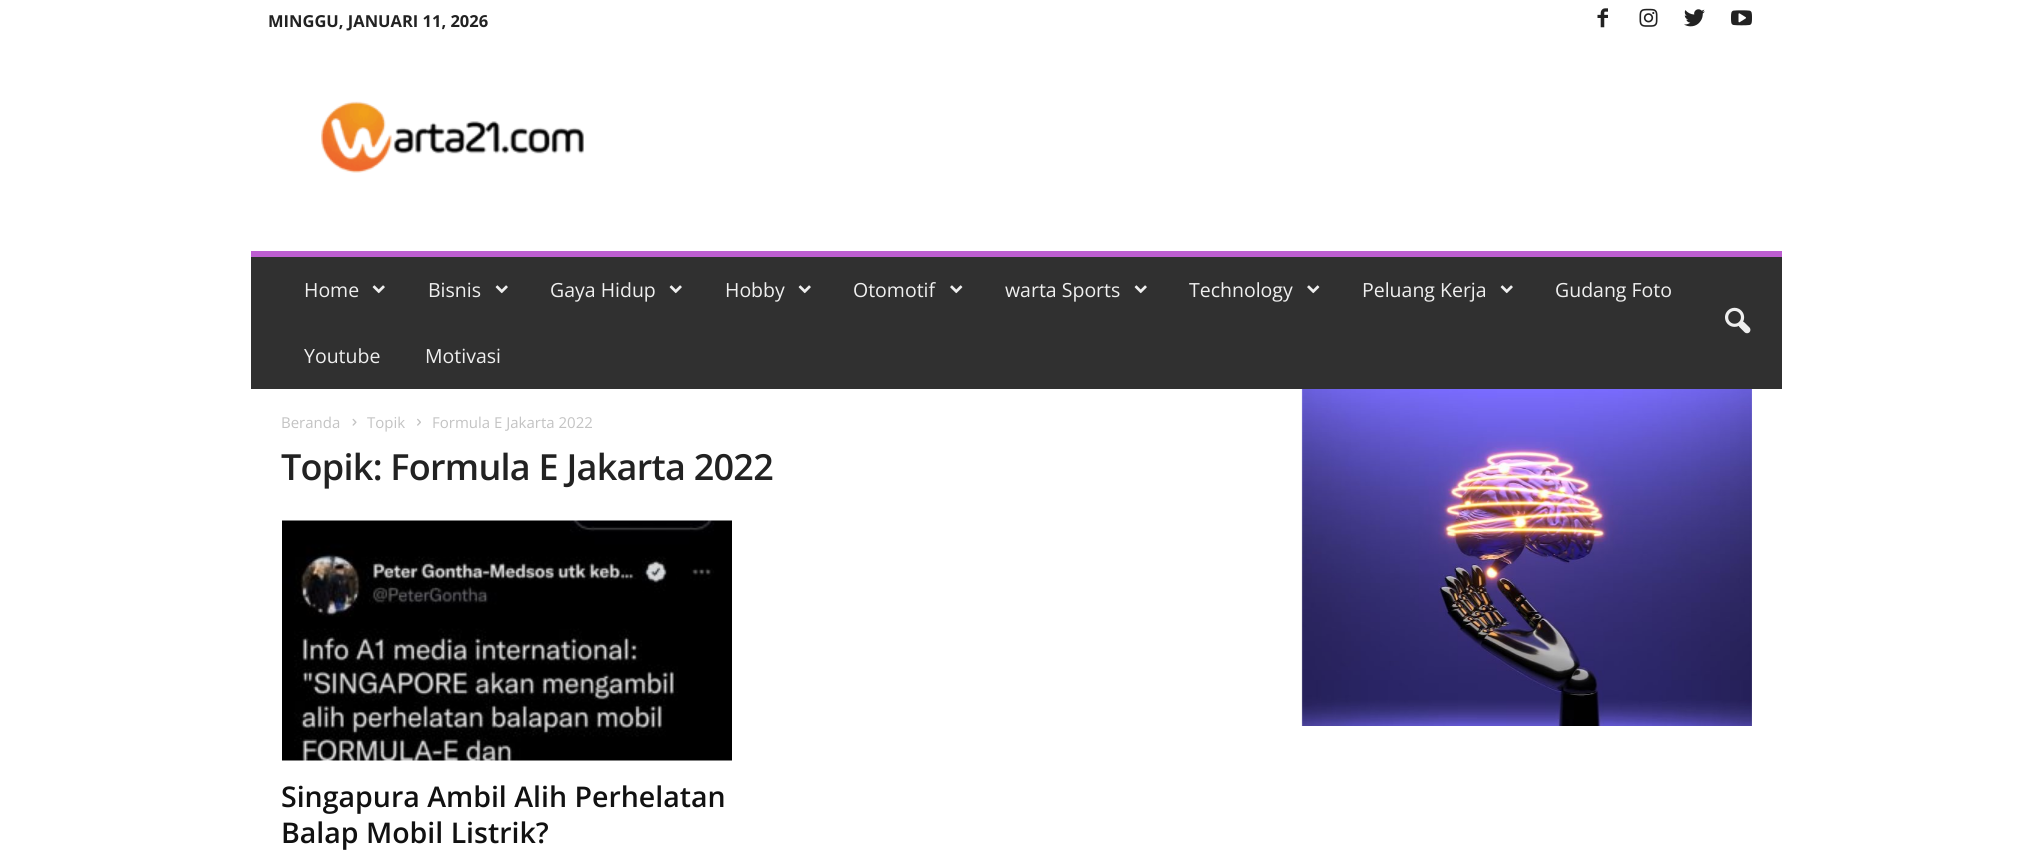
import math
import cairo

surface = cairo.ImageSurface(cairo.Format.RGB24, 2031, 857)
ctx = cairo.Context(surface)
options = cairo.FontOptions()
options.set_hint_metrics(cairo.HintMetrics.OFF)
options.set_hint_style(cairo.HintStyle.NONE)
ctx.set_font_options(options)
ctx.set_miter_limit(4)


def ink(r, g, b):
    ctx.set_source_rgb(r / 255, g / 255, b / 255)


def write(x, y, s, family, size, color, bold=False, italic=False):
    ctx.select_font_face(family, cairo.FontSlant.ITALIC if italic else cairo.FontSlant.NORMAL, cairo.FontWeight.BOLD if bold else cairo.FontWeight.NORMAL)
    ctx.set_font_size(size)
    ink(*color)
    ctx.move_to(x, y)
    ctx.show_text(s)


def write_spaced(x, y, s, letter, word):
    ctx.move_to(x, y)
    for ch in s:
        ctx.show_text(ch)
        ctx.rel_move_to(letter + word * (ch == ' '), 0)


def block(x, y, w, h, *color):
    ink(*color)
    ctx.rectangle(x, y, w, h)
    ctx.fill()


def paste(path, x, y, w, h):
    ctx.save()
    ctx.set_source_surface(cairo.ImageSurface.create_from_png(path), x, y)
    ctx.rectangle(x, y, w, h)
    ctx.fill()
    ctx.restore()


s1 = dict(family="Open Sans", size=16.5, color=(34, 34, 34), bold=True)
s2 = dict(family="Open Sans", size=19.5, color=(239, 239, 239))
s3 = dict(family="Open Sans", size=15, color=(195, 195, 195))
s4 = dict(family="Open Sans SemiBold", size=28.5, color=(17, 17, 17))

ink(255, 255, 255)
ctx.paint()
write(268, 27, "MINGGU, JANUARI 11, 2026", **s1)
paste("pic1.png", 1597, 8, 11, 20)
paste("pic2.png", 1639, 8, 19, 19)
paste("pic3.png", 1684, 9, 21, 18)
paste("pic4.png", 1731, 10, 21, 16)
paste("pic5.png", 321, 101, 263, 72)
block(251, 257, 1531, 132, 48, 48, 48)
block(251, 251, 1531, 6, 189, 94, 209)
write(304, 297, "Home", **s2)
paste("pic6.png", 372, 285, 13, 9)
write(428, 297, "Bisnis", **s2)
paste("pic6.png", 495, 285, 13, 9)
write(550, 297, "Gaya Hidup", **s2)
paste("pic6.png", 669, 285, 13, 9)
write(725, 297, "Hobby", **s2)
paste("pic6.png", 798, 285, 13, 9)
write(853, 297, "Otomotif", **s2)
paste("pic7.png", 950, 285, 13, 9)
write(1005, 297, "warta Sports", **s2)
paste("pic6.png", 1134, 285, 13, 9)
write(1189, 297, "Technology", **s2)
paste("pic7.png", 1307, 285, 13, 9)
write(1362, 297, "Peluang Kerja", **s2)
paste("pic6.png", 1500, 285, 13, 9)
write(1555, 297, "Gudang Foto", **s2)
write(304, 363, "Youtube", **s2)
write(425, 363, "Motivasi", **s2)
paste("pic8.png", 1725, 307, 26, 27)
write(281, 428, "Beranda", **s3)
paste("pic9.png", 352, 418, 5, 8)
write(367, 428, "Topik", **s3)
paste("pic10.png", 417, 418, 4, 8)
write(432, 428, "Formula E Jakarta 2022", **s3)
ctx.select_font_face("Open Sans SemiBold")
ctx.set_font_size(36)
ink(34, 34, 34)
write_spaced(281, 480, "Topik: Formula E Jakarta 2022", -0.75, 0)
paste("pic11.png", 282, 520, 450, 241)
write(281, 807, "Singapura Ambil Alih Perhelatan", **s4)
write(281, 843, "Balap Mobil Listrik?", **s4)
paste("pic12.png", 1301, 389, 451, 337)
surface.write_to_png("screenshot.png")
